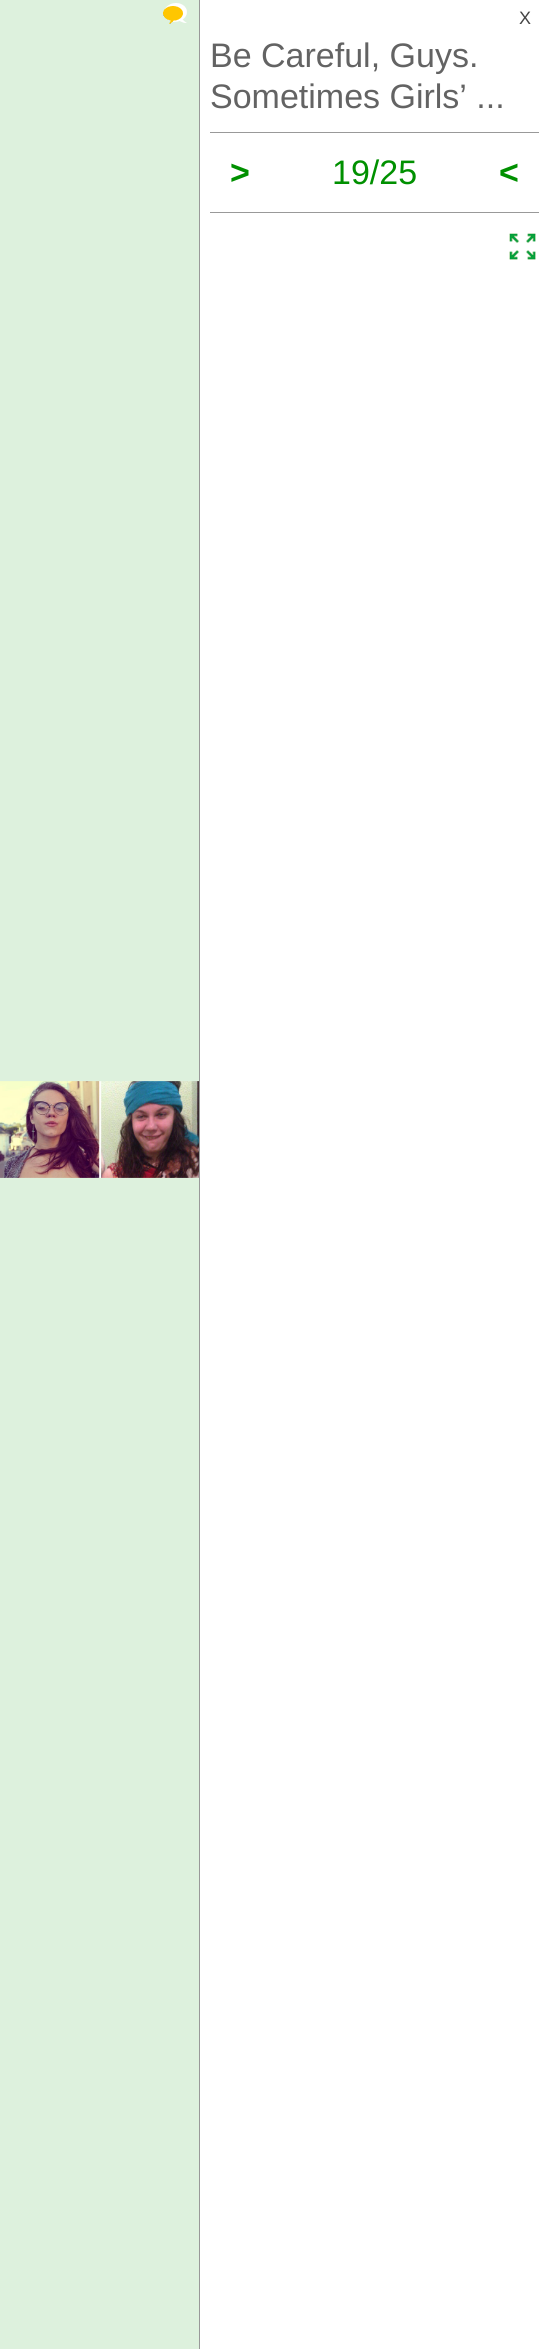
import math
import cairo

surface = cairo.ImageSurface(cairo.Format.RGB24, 549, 2349)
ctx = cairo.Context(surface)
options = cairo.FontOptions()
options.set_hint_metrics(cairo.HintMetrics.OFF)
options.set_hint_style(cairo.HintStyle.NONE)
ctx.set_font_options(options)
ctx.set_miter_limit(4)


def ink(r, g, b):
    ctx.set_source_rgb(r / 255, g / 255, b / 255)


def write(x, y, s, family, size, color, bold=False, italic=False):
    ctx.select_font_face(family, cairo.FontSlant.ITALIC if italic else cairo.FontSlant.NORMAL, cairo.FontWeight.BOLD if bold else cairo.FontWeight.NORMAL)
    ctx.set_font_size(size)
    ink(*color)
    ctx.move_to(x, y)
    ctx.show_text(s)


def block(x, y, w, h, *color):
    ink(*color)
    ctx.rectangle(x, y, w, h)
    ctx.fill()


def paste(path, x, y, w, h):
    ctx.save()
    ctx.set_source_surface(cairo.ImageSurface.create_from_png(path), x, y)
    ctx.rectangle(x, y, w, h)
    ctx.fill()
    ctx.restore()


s1 = dict(family="Liberation Sans", size=18, color=(68, 68, 68))
s2 = dict(family="Liberation Sans", size=34, color=(99, 99, 99))
s3 = dict(family="Liberation Sans", size=34, color=(0, 144, 0), bold=True)
s4 = dict(family="Liberation Sans", size=34, color=(0, 144, 0))

ink(221, 241, 221)
ctx.paint()
paste("pic1.png", 163, 3, 24, 21)
paste("pic2.png", 0, 1081, 199, 97)
block(200, 0, 349, 2349, 255, 255, 255)
block(199, 0, 1, 2349, 153, 153, 153)
write(519, 24, "X", **s1)
write(210, 67, "Be Careful, Guys.", **s2)
write(210, 108, "Sometimes Girls’ ...", **s2)
block(210, 132, 329, 1, 153, 153, 153)
block(210, 212, 329, 1, 153, 153, 153)
write(230, 184, ">", **s3)
write(332, 184, "19/25", **s4)
write(499, 184, "<", **s3)
paste("pic3.png", 509, 233, 27, 27)
surface.write_to_png("screenshot.png")
